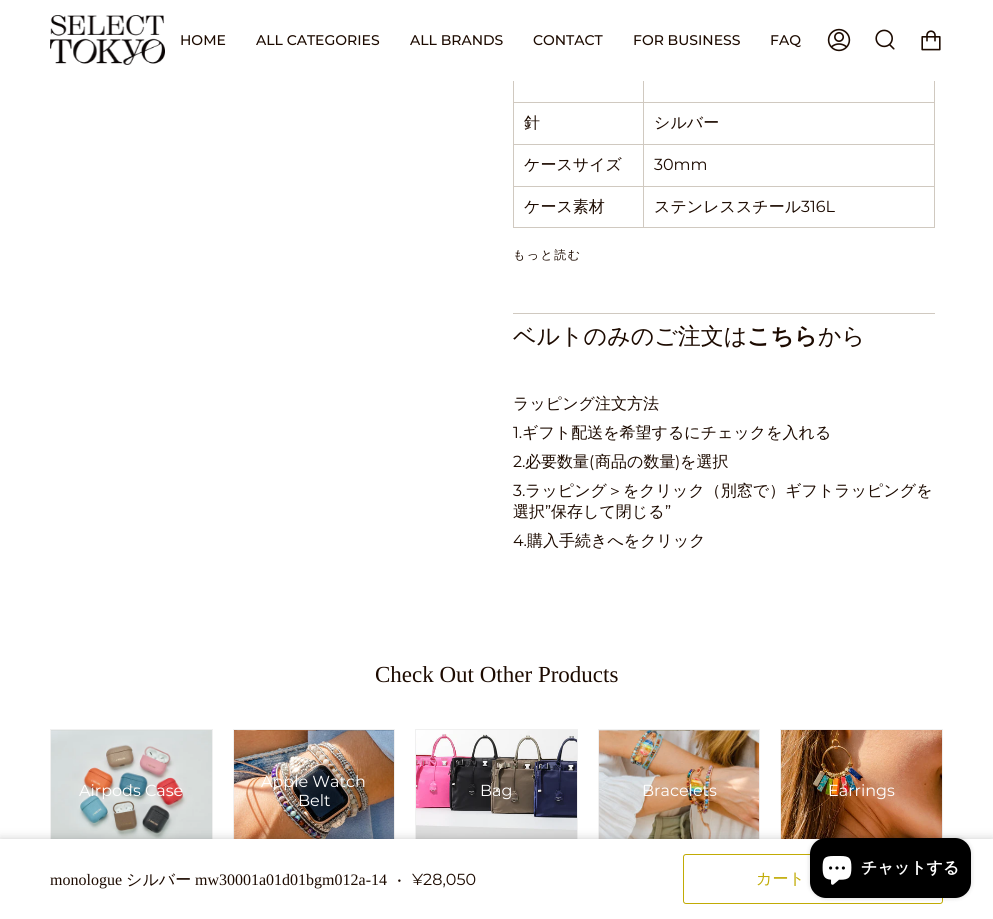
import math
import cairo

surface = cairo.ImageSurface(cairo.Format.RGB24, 993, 919)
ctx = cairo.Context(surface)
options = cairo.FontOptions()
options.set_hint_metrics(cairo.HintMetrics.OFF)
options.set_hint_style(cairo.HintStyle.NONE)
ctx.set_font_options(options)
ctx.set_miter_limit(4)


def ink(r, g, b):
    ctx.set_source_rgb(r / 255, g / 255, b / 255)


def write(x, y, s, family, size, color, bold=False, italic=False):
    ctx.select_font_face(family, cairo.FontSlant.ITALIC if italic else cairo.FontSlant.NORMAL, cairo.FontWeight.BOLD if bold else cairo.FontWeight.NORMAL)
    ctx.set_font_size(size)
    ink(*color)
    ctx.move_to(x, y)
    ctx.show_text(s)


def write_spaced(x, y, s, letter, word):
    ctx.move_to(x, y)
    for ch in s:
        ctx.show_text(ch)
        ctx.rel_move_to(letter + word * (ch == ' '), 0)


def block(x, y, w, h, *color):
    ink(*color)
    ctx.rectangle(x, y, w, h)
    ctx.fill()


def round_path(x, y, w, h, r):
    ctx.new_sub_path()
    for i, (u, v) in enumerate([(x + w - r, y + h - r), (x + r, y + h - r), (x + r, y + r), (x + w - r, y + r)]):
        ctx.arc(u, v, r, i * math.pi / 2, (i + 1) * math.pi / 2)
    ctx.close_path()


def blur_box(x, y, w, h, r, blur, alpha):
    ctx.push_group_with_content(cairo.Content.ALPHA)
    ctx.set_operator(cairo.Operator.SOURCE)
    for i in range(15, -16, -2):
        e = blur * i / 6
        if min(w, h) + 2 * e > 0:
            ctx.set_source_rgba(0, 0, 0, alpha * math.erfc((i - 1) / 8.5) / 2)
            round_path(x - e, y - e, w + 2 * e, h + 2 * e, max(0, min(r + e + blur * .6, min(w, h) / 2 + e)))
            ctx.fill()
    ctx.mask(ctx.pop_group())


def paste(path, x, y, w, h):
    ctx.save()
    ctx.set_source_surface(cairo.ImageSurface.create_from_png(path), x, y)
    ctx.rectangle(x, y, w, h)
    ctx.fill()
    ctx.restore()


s1 = dict(family="Montserrat Medium", size=14, color=(28, 10, 0))
s2 = dict(family="WenQuanYi Zen Hei Medium", size=16, color=(28, 10, 0))
s3 = dict(family="Montserrat", size=16, color=(28, 10, 0))
s4 = dict(family="WenQuanYi Zen Hei Medium", size=23, color=(28, 10, 0))
s5 = dict(family="WenQuanYi Zen Hei", size=23, color=(28, 10, 0), bold=True)
s6 = dict(family="Liberation Serif", size=16, color=(28, 10, 0))
s7 = dict(family="WenQuanYi Zen Hei Medium", size=16, color=(193, 171, 5))
s8 = dict(family="Liberation Serif", size=23, color=(28, 10, 0))
s9 = dict(family="Montserrat", size=16, color=(255, 255, 255))
s10 = dict(family="WenQuanYi Zen Hei", size=16, color=(255, 255, 255), bold=True)

ink(255, 255, 255)
ctx.paint()
paste("pic1.png", 50, 15, 115, 50)
write(180, 45, "HOME", **s1)
write(256, 45, "ALL CATEGORIES", **s1)
write(410, 45, "ALL BRANDS", **s1)
write(533, 45, "CONTACT", **s1)
write(633, 45, "FOR BUSINESS", **s1)
write(770, 45, "FAQ", **s1)
paste("pic2.png", 827, 28, 24, 24)
paste("pic3.png", 875, 29, 20, 21)
paste("pic4.png", 921, 30, 20, 21)
block(513, 313, 422, 1, 208, 201, 192)
block(934, 81, 1, 147, 208, 201, 192)
block(513, 227, 422, 1, 208, 201, 192)
block(513, 81, 1, 147, 208, 201, 192)
block(643, 186, 1, 42, 208, 201, 192)
block(643, 186, 292, 1, 208, 201, 192)
block(643, 144, 1, 43, 208, 201, 192)
block(643, 144, 292, 1, 208, 201, 192)
block(643, 102, 1, 43, 208, 201, 192)
block(643, 102, 292, 1, 208, 201, 192)
block(643, 81, 1, 22, 208, 201, 192)
block(513, 102, 131, 1, 208, 201, 192)
block(513, 144, 131, 1, 208, 201, 192)
write(524, 128, "針", **s2)
write(654, 128, "シルバー", **s2)
block(513, 186, 131, 1, 208, 201, 192)
write(524, 170, "ケースサイズ", **s2)
write(654, 170, "30mm", **s3)
write(524, 212, "ケース素材", **s2)
write(654, 212, "ステンレススチール", **s2)
write(801, 212, "316L", **s3)
ctx.select_font_face("WenQuanYi Zen Hei Medium")
ctx.set_font_size(12)
write_spaced(513, 259, "もっと読む", 1.5, 0)
write(513, 344, "ベルトのみのご注文は", **s4)
write(747, 344, "こちら", **s5)
write(818, 344, "から", **s4)
write(513, 409, "ラッピング注文方法", **s2)
write(513, 438, "1.", **s3)
write(522, 438, "ギフト配送を希望するにチェックを入れる", **s2)
write(513, 467, "2.", **s3)
write(525, 467, "必要数量", **s2)
write(589, 467, "(", **s3)
write(595, 467, "商品の数量", **s2)
write(675, 467, ")", **s3)
write(680, 467, "を選択", **s2)
write(513, 496, "3.", **s3)
write(525, 496, "ラッピング＞をクリック（別窓で）ギフトラッピングを", **s2)
write(513, 517, "選択", **s2)
write(545, 517, "”", **s3)
write(551, 517, "保存して閉じる", **s2)
write(665, 517, "”", **s3)
write(513, 546, "4.", **s3)
write(527, 546, "購入手続きへをクリック", **s2)
block(50, 729, 163, 110, 240, 240, 240)
paste("pic5.png", 51, 730, 161, 109)
block(233, 729, 162, 110, 240, 240, 240)
paste("pic6.png", 234, 730, 160, 109)
block(415, 729, 163, 110, 240, 240, 240)
paste("pic7.png", 416, 730, 161, 109)
block(598, 729, 162, 110, 240, 240, 240)
paste("pic8.png", 599, 730, 160, 109)
block(780, 729, 163, 110, 240, 240, 240)
paste("pic9.png", 781, 730, 161, 109)
ink(0, 0, 0)
blur_box(0, 839, 993, 80, 0, 5, 0.2)
block(0, 839, 993, 80, 255, 255, 255)
write(50, 885, "monologue", **s6)
write(126, 885, "シルバー", **s2)
write(195, 885, "mw30001a01d01bgm012a-14", **s6)
write(397, 885, "•", **s3)
write(412, 885, "¥28,050", **s3)
round_path(683.5, 854.5, 259, 49, 2.5)
ink(193, 171, 5)
ctx.set_line_width(1)
ctx.stroke()
write(756, 884, "カート", **s7)
write(375, 682, "Check Out Other Products", **s8)
write(79, 796, "Airpods Case", **s9)
write(261, 787, "Apple Watch", **s9)
write(298, 806, "Belt", **s9)
write(480, 796, "Bag", **s9)
write(642, 796, "Bracelets", **s9)
write(828, 796, "Earrings", **s9)
ink(0, 0, 0)
blur_box(810, 838, 161, 60, 16, 2.5, 0.15)
ink(0, 0, 0)
round_path(810, 838, 161, 60, 16)
ctx.fill()
paste("pic10.png", 822, 856, 30, 29)
write(861, 873, "チャットする", **s10)
surface.write_to_png("screenshot.png")
